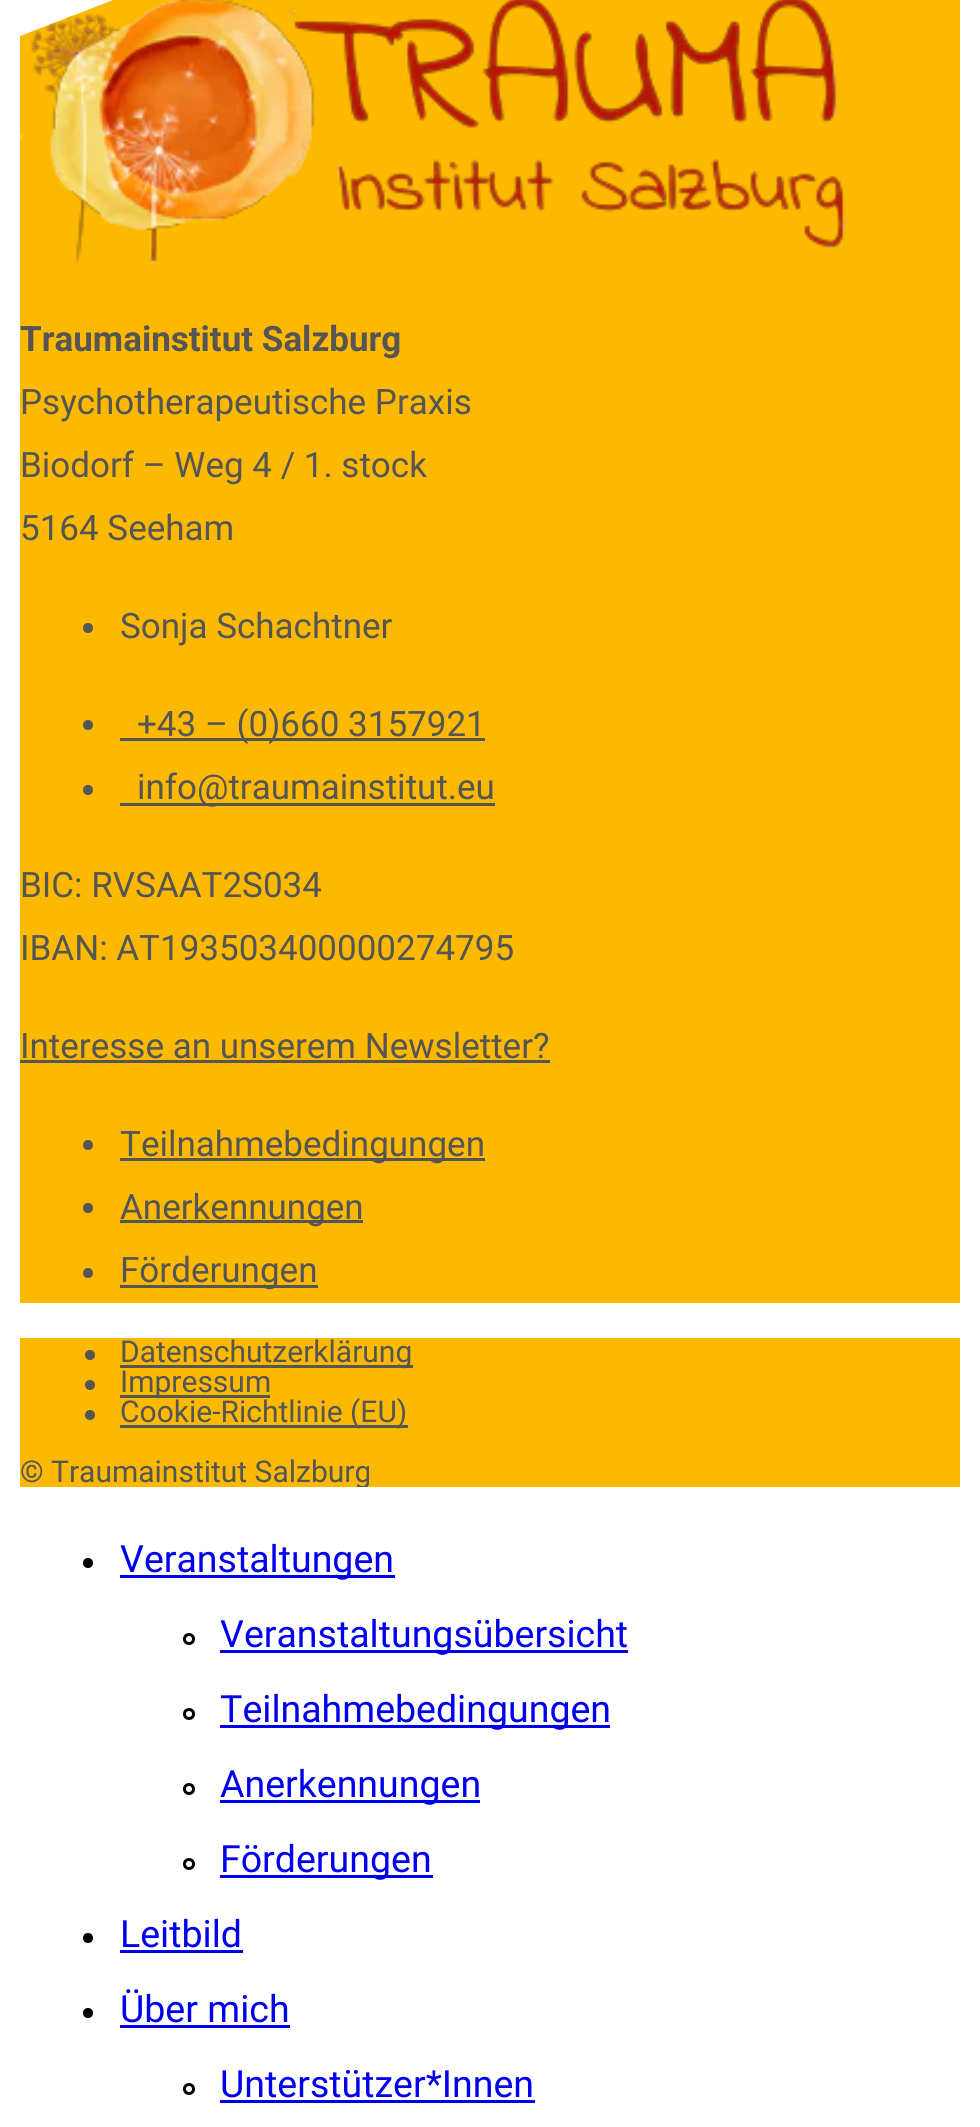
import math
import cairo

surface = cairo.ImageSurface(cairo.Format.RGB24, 980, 2127)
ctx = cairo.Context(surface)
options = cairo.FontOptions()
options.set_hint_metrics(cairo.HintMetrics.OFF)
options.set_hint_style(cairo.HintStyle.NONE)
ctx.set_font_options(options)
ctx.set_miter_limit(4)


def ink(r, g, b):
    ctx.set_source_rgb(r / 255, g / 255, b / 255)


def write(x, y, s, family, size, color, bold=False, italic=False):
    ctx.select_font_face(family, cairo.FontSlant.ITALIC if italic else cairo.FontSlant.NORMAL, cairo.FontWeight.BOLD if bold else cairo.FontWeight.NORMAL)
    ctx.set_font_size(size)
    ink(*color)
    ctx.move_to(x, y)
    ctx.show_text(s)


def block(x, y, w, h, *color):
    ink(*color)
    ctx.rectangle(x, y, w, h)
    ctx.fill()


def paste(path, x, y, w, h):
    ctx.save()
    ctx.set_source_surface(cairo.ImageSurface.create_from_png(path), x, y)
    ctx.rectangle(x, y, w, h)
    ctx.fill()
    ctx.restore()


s1 = dict(family="Roboto", size=35, color=(85, 85, 85), bold=True)
s2 = dict(family="Roboto", size=35, color=(85, 85, 85))
s3 = dict(family="Roboto", size=30, color=(85, 85, 85))
s4 = dict(family="Roboto", size=37.5, color=(0, 0, 238))

ink(255, 255, 255)
ctx.paint()
ink(252, 185, 0)
ctx.new_path()
ctx.move_to(20, 36)
ctx.line_to(20, 1303)
ctx.line_to(960, 1303)
ctx.line_to(960, -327)
ctx.line_to(959, -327)
ctx.close_path()
ctx.fill()
paste("pic1.png", 20, 0, 826, 264)
write(20, 351, "Traumainstitut Salzburg", **s1)
write(20, 414, "Psychotherapeutische Praxis", **s2)
write(20, 477, "Biodorf – Weg 4 / 1. stock", **s2)
write(20, 540, "5164 Seeham", **s2)
ctx.new_path()
ctx.arc(88, 628, 5, 0, 2 * math.pi)
ctx.fill()
write(120, 638, "Sonja Schachtner", **s2)
ctx.new_path()
ctx.arc(88, 725, 5, 0, 2 * math.pi)
ctx.fill()
block(120, 738, 365, 3, 85, 85, 85)
write(137, 736, "+43 – (0)660 3157921", **s2)
ctx.new_path()
ctx.arc(88, 790, 5, 0, 2 * math.pi)
ctx.fill()
block(120, 803, 375, 3, 85, 85, 85)
write(137, 799, "info@traumainstitut.eu", **s2)
write(20, 897, "BIC: RVSAAT2S034", **s2)
write(20, 960, "IBAN: AT193503400000274795", **s2)
write(20, 1058, "Interesse an unserem Newsletter?", **s2)
block(20, 1060, 530, 3, 85, 85, 85)
ctx.new_path()
ctx.arc(88, 1145, 5, 0, 2 * math.pi)
ctx.fill()
block(120, 1158, 365, 3, 85, 85, 85)
write(120, 1156, "Teilnahmebedingungen", **s2)
ctx.new_path()
ctx.arc(88, 1208, 5, 0, 2 * math.pi)
ctx.fill()
block(120, 1220, 243, 3, 85, 85, 85)
write(120, 1219, "Anerkennungen", **s2)
ctx.new_path()
ctx.arc(88, 1273, 5, 0, 2 * math.pi)
ctx.fill()
block(120, 1285, 198, 3, 85, 85, 85)
write(120, 1282, "Förderungen", **s2)
block(20, 1338, 940, 149, 252, 185, 0)
ink(85, 85, 85)
ctx.new_path()
ctx.arc(90, 1355, 5, 0, 2 * math.pi)
ctx.fill()
block(120, 1365, 293, 3, 85, 85, 85)
write(120, 1362, "Datenschutzerklärung", **s3)
ctx.new_path()
ctx.arc(90, 1385, 5, 0, 2 * math.pi)
ctx.fill()
block(120, 1395, 150, 3, 85, 85, 85)
write(120, 1392, "Impressum", **s3)
ctx.new_path()
ctx.arc(90, 1415, 5, 0, 2 * math.pi)
ctx.fill()
block(120, 1425, 288, 3, 85, 85, 85)
write(120, 1422, "Cookie-Richtlinie (EU)", **s3)
ctx.save()
ctx.new_path()
ctx.move_to(20, 35.5)
ctx.line_to(960, -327)
ctx.line_to(960, 1487)
ctx.line_to(20, 1487)
ctx.close_path()
ctx.clip()
write(20, 1482, "© Traumainstitut Salzburg", **s3)
ctx.restore()
ink(0, 0, 0)
ctx.new_path()
ctx.arc(88, 1563, 5, 0, 2 * math.pi)
ctx.fill()
block(120, 1575, 275, 3, 0, 0, 238)
write(120, 1572, "Veranstaltungen", **s4)
ctx.new_path()
ctx.arc(189, 1639, 4.5, 0, 2 * math.pi)
ink(0, 0, 0)
ctx.set_line_width(3)
ctx.stroke()
block(220, 1650, 408, 3, 0, 0, 238)
write(220, 1647, "Veranstaltungsübersicht", **s4)
ctx.new_path()
ctx.arc(189, 1714, 4.5, 0, 2 * math.pi)
ink(0, 0, 0)
ctx.stroke()
block(220, 1725, 390, 3, 0, 0, 238)
write(220, 1722, "Teilnahmebedingungen", **s4)
ctx.new_path()
ctx.arc(189, 1789, 4.5, 0, 2 * math.pi)
ink(0, 0, 0)
ctx.stroke()
block(220, 1800, 260, 3, 0, 0, 238)
write(220, 1797, "Anerkennungen", **s4)
ctx.new_path()
ctx.arc(189, 1864, 4.5, 0, 2 * math.pi)
ink(0, 0, 0)
ctx.stroke()
block(220, 1875, 213, 3, 0, 0, 238)
write(220, 1872, "Förderungen", **s4)
ink(0, 0, 0)
ctx.new_path()
ctx.arc(88, 1938, 5, 0, 2 * math.pi)
ctx.fill()
write(120, 1947, "Leitbild", **s4)
block(120, 1950, 123, 3, 0, 0, 238)
ink(0, 0, 0)
ctx.new_path()
ctx.arc(88, 2013, 5, 0, 2 * math.pi)
ctx.fill()
write(120, 2022, "Über mich", **s4)
block(120, 2025, 170, 3, 0, 0, 238)
ctx.new_path()
ctx.arc(189, 2089, 4.5, 0, 2 * math.pi)
ink(0, 0, 0)
ctx.stroke()
write(220, 2097, "Unterstützer*Innen", **s4)
block(220, 2100, 315, 3, 0, 0, 238)
surface.write_to_png("screenshot.png")
